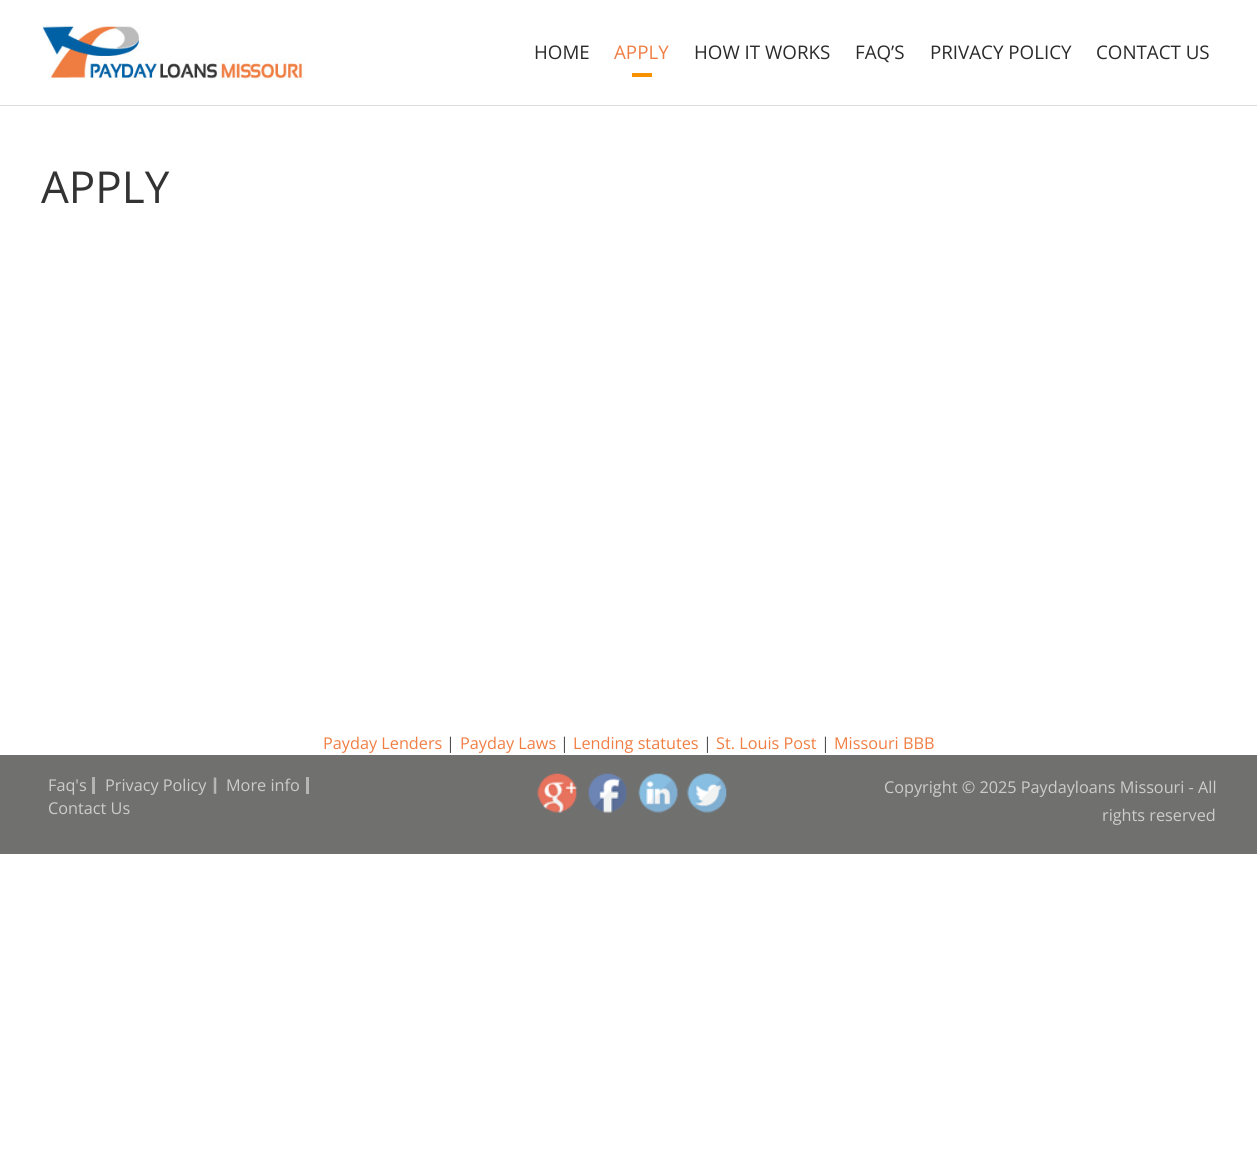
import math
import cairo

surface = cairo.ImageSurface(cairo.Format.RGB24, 1257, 1163)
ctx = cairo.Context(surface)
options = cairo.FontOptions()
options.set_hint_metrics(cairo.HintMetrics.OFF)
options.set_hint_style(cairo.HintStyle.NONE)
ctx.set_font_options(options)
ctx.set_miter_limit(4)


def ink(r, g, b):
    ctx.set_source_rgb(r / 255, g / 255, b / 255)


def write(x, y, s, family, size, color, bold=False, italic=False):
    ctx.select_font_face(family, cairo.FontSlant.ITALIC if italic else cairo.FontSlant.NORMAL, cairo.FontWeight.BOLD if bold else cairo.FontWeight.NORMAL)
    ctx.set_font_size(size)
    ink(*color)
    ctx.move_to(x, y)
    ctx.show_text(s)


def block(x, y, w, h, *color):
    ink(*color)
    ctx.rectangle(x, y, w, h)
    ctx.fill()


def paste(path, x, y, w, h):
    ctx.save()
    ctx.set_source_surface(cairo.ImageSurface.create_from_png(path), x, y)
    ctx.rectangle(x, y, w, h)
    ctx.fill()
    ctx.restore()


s1 = dict(family="Open Sans", size=18.75, color=(43, 43, 43))
s2 = dict(family="Open Sans", size=18.75, color=(240, 126, 68))
s3 = dict(family="Open Sans", size=44, color=(51, 51, 51))
s4 = dict(family="Open Sans", size=16.25, color=(240, 126, 68))
s5 = dict(family="Open Sans", size=16.25, color=(80, 80, 80))
s6 = dict(family="Open Sans", size=16.25, color=(204, 204, 204))

ink(255, 255, 255)
ctx.paint()
block(0, 105, 1257, 1, 221, 221, 221)
paste("pic1.png", 41, 25, 265, 54)
write(534, 59, "HOME", **s1)
block(632, 73, 20, 4, 248, 146, 0)
write(614, 59, "APPLY", **s2)
write(694, 59, "HOW IT WORKS", **s1)
write(855, 59, "FAQ’S", **s1)
write(930, 59, "PRIVACY POLICY", **s1)
write(1096, 59, "CONTACT US", **s1)
write(41, 203, "APPLY", **s3)
write(323, 749, "Payday Lenders", **s4)
write(446, 749, "|", **s5)
write(460, 749, "Payday Laws", **s4)
write(560, 749, "|", **s5)
write(573, 749, "Lending statutes", **s4)
write(703, 749, "|", **s5)
write(716, 749, "St. Louis Post", **s4)
write(821, 749, "|", **s5)
write(834, 749, "Missouri BBB", **s4)
block(0, 755, 1257, 99, 112, 112, 111)
block(92, 777, 3, 17, 180, 180, 179)
write(48, 791, "Faq's", **s6)
paste("pic2.png", 213, 777, 4, 17)
write(105, 791, "Privacy Policy", **s6)
block(306, 777, 3, 17, 182, 182, 182)
write(226, 791, "More info", **s6)
write(48, 814, "Contact Us", **s6)
paste("pic3.png", 537, 773, 40, 40)
paste("pic4.png", 588, 773, 39, 40)
paste("pic5.png", 638, 773, 40, 40)
paste("pic6.png", 687, 773, 40, 40)
write(884, 793, "Copyright © 2025 Paydayloans Missouri - All", **s6)
write(1102, 821, "rights reserved", **s6)
surface.write_to_png("screenshot.png")
